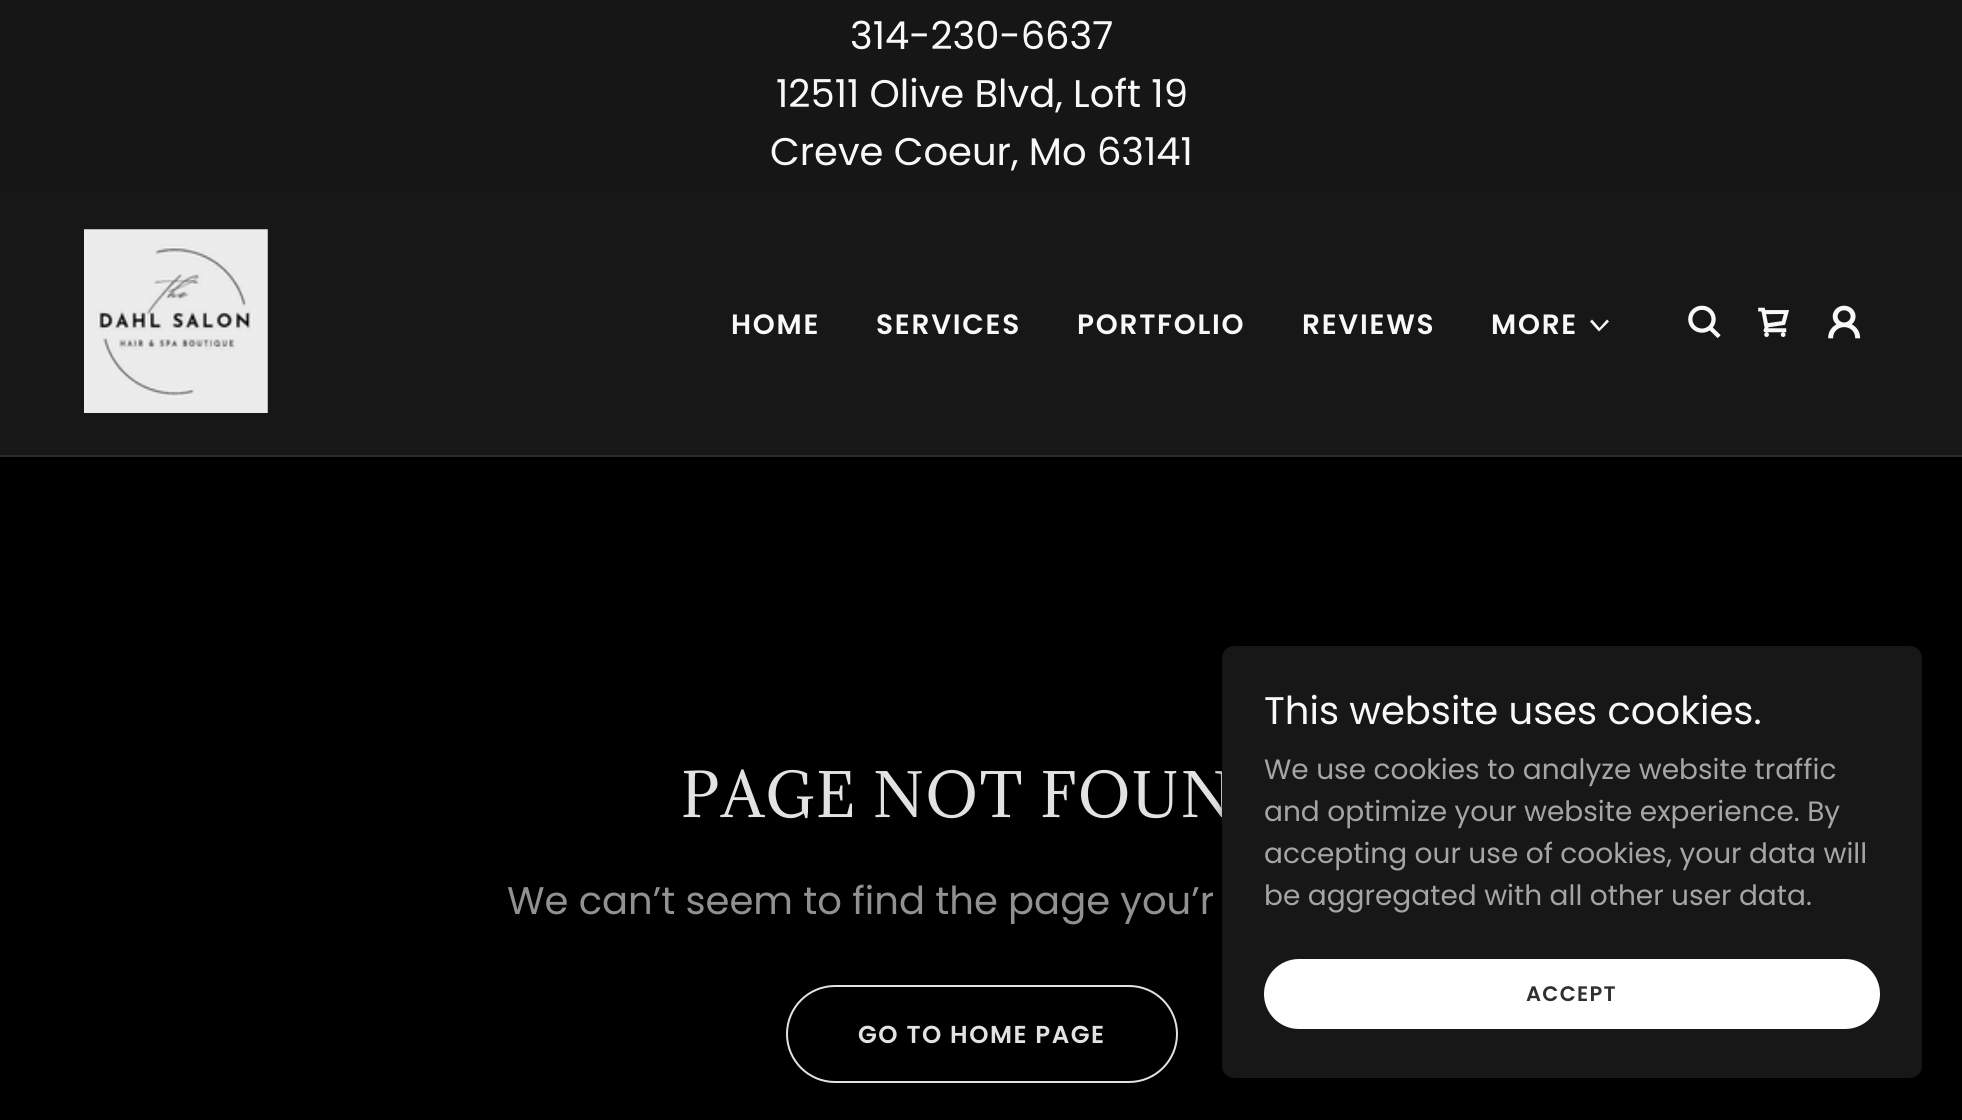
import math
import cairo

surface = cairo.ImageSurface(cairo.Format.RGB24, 1962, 1120)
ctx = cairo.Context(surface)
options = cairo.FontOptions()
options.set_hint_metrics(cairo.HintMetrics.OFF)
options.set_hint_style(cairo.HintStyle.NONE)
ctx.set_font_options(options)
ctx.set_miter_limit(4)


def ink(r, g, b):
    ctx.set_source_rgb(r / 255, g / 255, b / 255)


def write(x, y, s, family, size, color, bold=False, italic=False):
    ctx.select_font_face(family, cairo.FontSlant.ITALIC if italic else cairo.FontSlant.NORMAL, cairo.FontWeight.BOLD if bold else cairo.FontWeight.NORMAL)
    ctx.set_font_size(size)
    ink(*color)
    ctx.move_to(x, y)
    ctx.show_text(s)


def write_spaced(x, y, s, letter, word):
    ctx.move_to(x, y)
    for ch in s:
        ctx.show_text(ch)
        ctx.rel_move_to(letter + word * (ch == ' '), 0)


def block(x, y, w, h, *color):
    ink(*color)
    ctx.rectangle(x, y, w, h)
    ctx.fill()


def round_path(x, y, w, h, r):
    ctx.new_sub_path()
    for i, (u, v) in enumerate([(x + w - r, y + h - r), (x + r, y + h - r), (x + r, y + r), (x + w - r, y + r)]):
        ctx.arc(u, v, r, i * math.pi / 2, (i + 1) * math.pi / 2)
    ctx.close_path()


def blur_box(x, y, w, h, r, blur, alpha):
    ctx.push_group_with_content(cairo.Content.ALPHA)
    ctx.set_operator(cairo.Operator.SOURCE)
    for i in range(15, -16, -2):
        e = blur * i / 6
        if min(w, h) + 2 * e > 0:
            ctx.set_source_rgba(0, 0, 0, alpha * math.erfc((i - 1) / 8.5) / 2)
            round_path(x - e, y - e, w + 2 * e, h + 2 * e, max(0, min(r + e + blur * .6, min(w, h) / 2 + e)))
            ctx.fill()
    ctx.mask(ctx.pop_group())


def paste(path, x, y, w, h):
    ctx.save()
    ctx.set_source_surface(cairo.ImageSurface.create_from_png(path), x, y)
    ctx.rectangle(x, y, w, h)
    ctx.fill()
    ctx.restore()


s1 = dict(family="Poppins", size=38.5, color=(248, 248, 248))
s2 = dict(family="Poppins", size=38.5, color=(145, 145, 145))
s3 = dict(family="Poppins", size=28, color=(165, 165, 165))

ink(0, 0, 0)
ctx.paint()
block(0, 0, 1962, 187, 22, 22, 22)
write(850, 49, "314-230-6637", **s1)
write(776, 107, "12511 Olive Blvd, Loft 19", **s1)
write(770, 165, "Creve Coeur, Mo 63141", **s1)
block(0, 187, 1962, 268, 23, 23, 23)
paste("pic1.png", 84, 229, 184, 184)
ctx.select_font_face("Poppins SemiBold")
ctx.set_font_size(28)
ink(248, 248, 248)
write_spaced(731, 334, "HOME", 1.75, 0)
write_spaced(876, 334, "SERVICES", 1.75, 0)
write_spaced(1077, 334, "PORTFOLIO", 1.75, 0)
write_spaced(1302, 334, "REVIEWS", 1.75, 0)
write_spaced(1491, 334, "MORE", 1.75, 0)
ctx.set_fill_rule(cairo.FillRule.EVEN_ODD)
ctx.new_path()
ctx.move_to(1607, 319.5)
ctx.line_to(1599.5, 328)
ctx.line_to(1592, 319.5)
ctx.line_to(1590, 321.5)
ctx.line_to(1599, 331.5)
ctx.line_to(1609, 321.5)
ctx.close_path()
ctx.fill()
paste("pic2.png", 1688, 305, 33, 33)
paste("pic3.png", 1758, 307, 31, 30)
paste("pic4.png", 1828, 305, 33, 34)
block(0, 455, 1962, 2, 43, 43, 43)
ctx.select_font_face("Adamina")
ctx.set_font_size(57.75)
ink(226, 226, 226)
write_spaced(681, 817, "PAGE NOT FOUN", 1.75, 0)
write(507, 914, "We can’t seem to find the page you’r", **s2)
round_path(787, 986, 390, 96, 48)
ink(226, 226, 226)
ctx.stroke()
ctx.select_font_face("Poppins SemiBold")
ctx.set_font_size(24.5)
write_spaced(858, 1043, "GO TO HOME PAGE", 1.5, 0)
ink(0, 0, 0)
blur_box(1222, 649, 700, 433, 12, 5, 0.3)
ink(23, 23, 23)
round_path(1222, 646, 700, 432, 12)
ctx.fill()
write(1264, 724, "This website uses cookies.", **s1)
write(1264, 779, "We use cookies to analyze website traffic", **s3)
write(1264, 821, "and optimize your website experience. By", **s3)
write(1264, 863, "accepting our use of cookies, your data will", **s3)
write(1264, 905, "be aggregated with all other user data.", **s3)
ink(255, 255, 255)
round_path(1264, 959, 616, 70, 35)
ctx.fill()
ctx.select_font_face("Poppins SemiBold")
ctx.set_font_size(21)
ink(48, 48, 48)
write_spaced(1526, 1001, "ACCEPT", 1.25, 0)
surface.write_to_png("screenshot.png")
